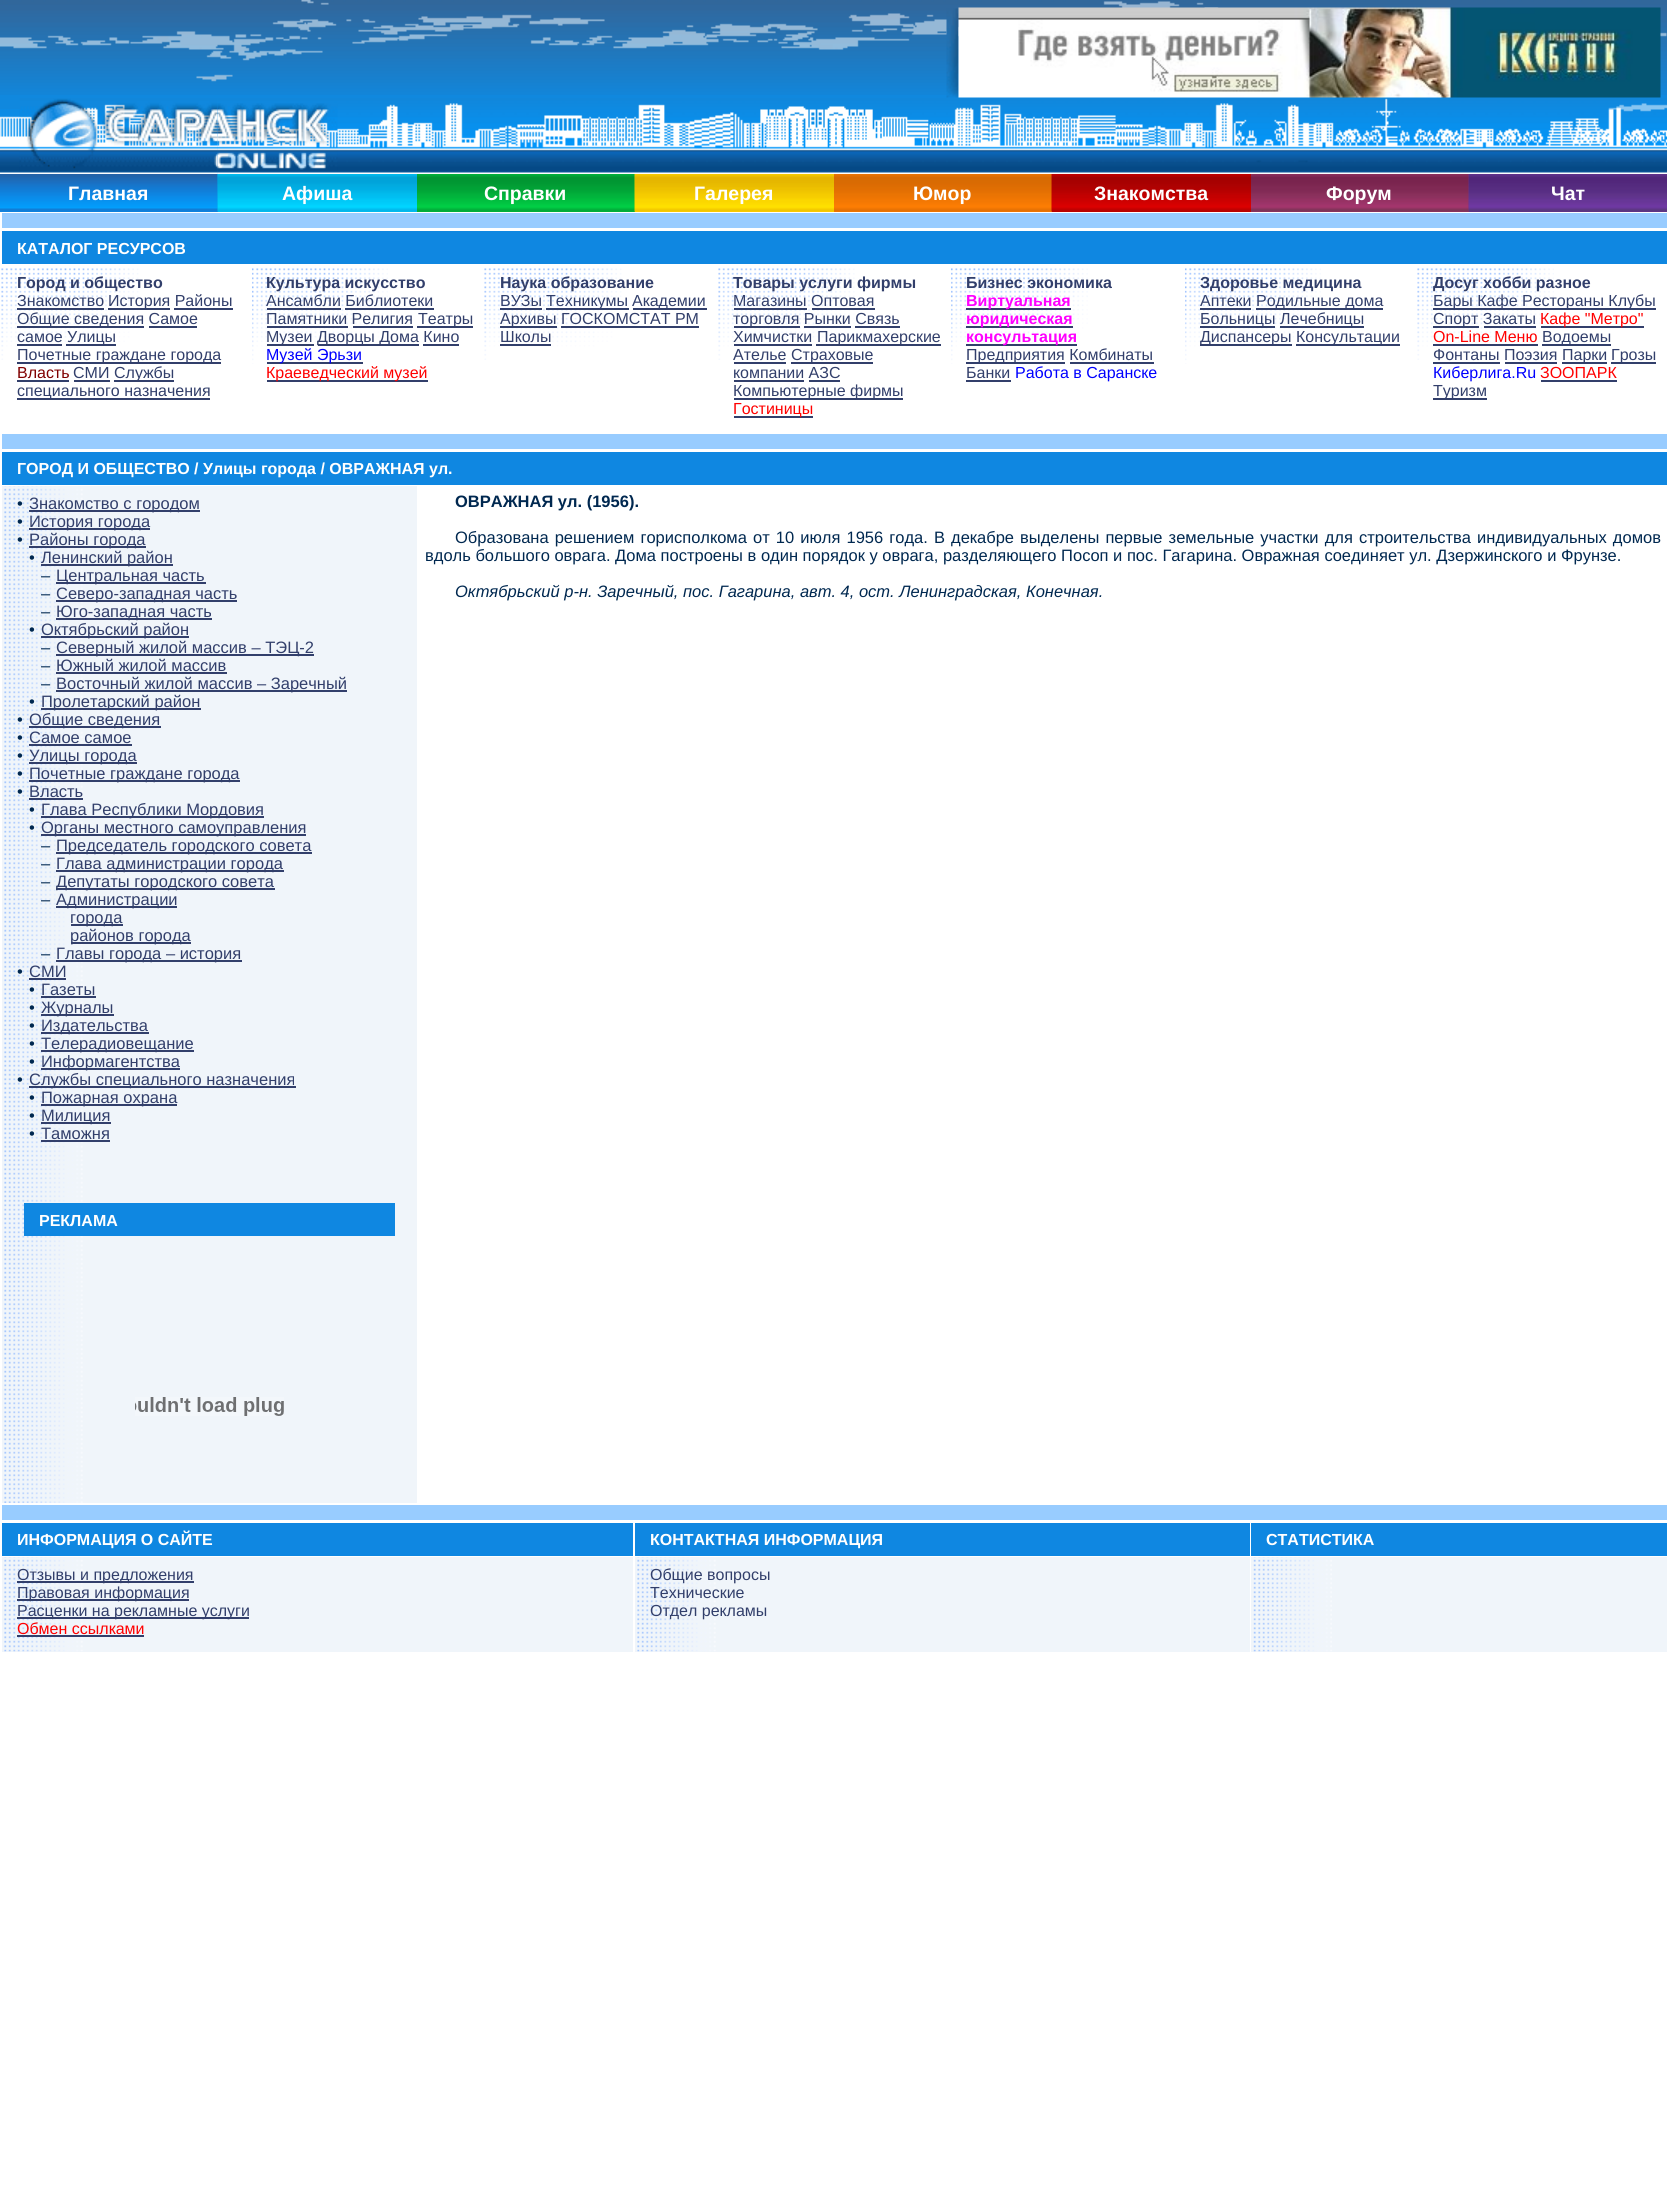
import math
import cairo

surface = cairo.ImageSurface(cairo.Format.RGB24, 1667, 2194)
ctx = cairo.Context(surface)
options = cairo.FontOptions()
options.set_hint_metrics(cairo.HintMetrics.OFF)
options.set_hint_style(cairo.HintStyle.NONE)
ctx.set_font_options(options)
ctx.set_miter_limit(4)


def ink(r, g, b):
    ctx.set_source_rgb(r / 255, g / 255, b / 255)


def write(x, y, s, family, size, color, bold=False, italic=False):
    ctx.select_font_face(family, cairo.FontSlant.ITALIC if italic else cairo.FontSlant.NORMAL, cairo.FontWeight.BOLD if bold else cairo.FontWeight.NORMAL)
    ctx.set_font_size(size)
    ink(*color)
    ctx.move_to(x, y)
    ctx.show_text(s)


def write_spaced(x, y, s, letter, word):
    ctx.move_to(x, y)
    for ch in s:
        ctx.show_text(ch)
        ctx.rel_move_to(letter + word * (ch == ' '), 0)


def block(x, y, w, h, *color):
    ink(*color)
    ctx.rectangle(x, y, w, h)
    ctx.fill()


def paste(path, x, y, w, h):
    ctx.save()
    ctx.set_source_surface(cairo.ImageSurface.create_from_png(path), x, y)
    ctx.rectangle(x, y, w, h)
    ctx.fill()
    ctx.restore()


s1 = dict(family="Liberation Sans", size=19.5, color=(255, 255, 255), bold=True)
s2 = dict(family="Liberation Sans", size=16, color=(255, 255, 255), bold=True)
s3 = dict(family="Liberation Sans", size=16, color=(50, 63, 107), bold=True)
s4 = dict(family="Liberation Sans", size=16, color=(50, 63, 107))
s5 = dict(family="Liberation Sans", size=16, color=(128, 0, 0))
s6 = dict(family="Liberation Sans", size=16, color=(0, 0, 255))
s7 = dict(family="Liberation Sans", size=16, color=(255, 0, 0))
s8 = dict(family="Liberation Sans", size=16, color=(255, 0, 255), bold=True)
s9 = dict(family="Liberation Sans", size=16.5, color=(0, 40, 80))
s10 = dict(family="Liberation Sans", size=16.5, color=(50, 63, 107))
s11 = dict(family="Liberation Sans", size=16.5, color=(0, 40, 80), bold=True)
s12 = dict(family="Liberation Sans", size=16.5, color=(0, 40, 80), italic=True)

ink(255, 255, 255)
ctx.paint()
block(0, 95, 1667, 79, 16, 136, 222)
paste("pic1.png", 0, 0, 1667, 95)
paste("pic2.png", 946, 8, 13, 90)
paste("pic3.png", 958, 7, 703, 91)
paste("pic4.png", 0, 109, 218, 65)
paste("pic6.png", 217, 98, 1450, 76)
paste("pic5.png", 19, 98, 199, 76)
paste("pic7.png", 217, 103, 121, 71)
block(0, 174, 218, 38, 15, 135, 225)
paste("pic8.png", 0, 174, 218, 38)
write(68, 200, "Главная", **s1)
block(218, 211, 199, 1, 0, 190, 240)
paste("pic9.png", 217, 174, 200, 38)
write(282, 200, "Афиша", **s1)
block(417, 174, 218, 38, 0, 180, 60)
paste("pic10.png", 417, 174, 218, 38)
write(484, 200, "Справки", **s1)
block(635, 211, 199, 1, 255, 204, 0)
paste("pic11.png", 634, 174, 200, 38)
write(694, 200, "Галерея", **s1)
block(834, 174, 218, 38, 244, 120, 0)
paste("pic12.png", 834, 174, 218, 38)
write(913, 200, "Юмор", **s1)
block(1052, 211, 199, 1, 190, 0, 0)
paste("pic13.png", 1051, 174, 200, 38)
write(1094, 200, "Знакомства", **s1)
block(1251, 174, 218, 38, 150, 50, 100)
paste("pic14.png", 1251, 174, 218, 38)
write(1326, 200, "Форум", **s1)
block(1469, 211, 198, 1, 100, 50, 140)
paste("pic15.png", 1468, 174, 199, 38)
write(1551, 200, "Чат", **s1)
block(2, 213, 1665, 15, 152, 204, 255)
block(2, 231, 1665, 33, 15, 135, 225)
write(17, 254, "КАТАЛОГ РЕСУРСОВ", **s2)
paste("pic16.png", 1, 268, 138, 92)
write(17, 288, "Город и общество", **s3)
write(17, 306, "Знакомство", **s4)
block(17, 308, 87, 2, 50, 63, 107)
block(108, 308, 62, 2, 50, 63, 107)
write(108, 306, "История Районы", **s4)
block(174, 308, 59, 2, 50, 63, 107)
block(17, 326, 127, 2, 50, 63, 107)
write(17, 324, "Общие сведения Самое", **s4)
write(17, 342, "самое", **s4)
block(149, 326, 48, 2, 50, 63, 107)
block(17, 344, 45, 2, 50, 63, 107)
block(66, 344, 50, 2, 50, 63, 107)
write(67, 342, "Улицы", **s4)
block(17, 362, 204, 2, 50, 63, 107)
write(17, 360, "Почетные граждане города", **s4)
write(17, 378, "Власть", **s5)
block(17, 380, 52, 2, 50, 63, 107)
write(73, 378, "СМИ", **s4)
block(74, 380, 36, 2, 50, 63, 107)
block(114, 380, 60, 2, 50, 63, 107)
write(114, 378, "Службы", **s4)
block(17, 398, 193, 2, 50, 63, 107)
write(17, 396, "специального назначения", **s4)
paste("pic17.png", 252, 268, 136, 96)
write(266, 288, "Культура искусство", **s3)
write(266, 306, "Ансамбли Библиотеки", **s4)
block(267, 308, 74, 2, 50, 63, 107)
block(345, 308, 89, 2, 50, 63, 107)
write(266, 324, "Памятники Религия", **s4)
block(267, 326, 81, 2, 50, 63, 107)
block(417, 326, 56, 2, 50, 63, 107)
write(418, 324, "Театры", **s4)
block(353, 326, 60, 2, 50, 63, 107)
block(267, 344, 47, 2, 50, 63, 107)
write(266, 342, "Музеи", **s4)
block(318, 344, 101, 2, 50, 63, 107)
write(317, 342, "Дворцы Дома Кино", **s4)
block(423, 344, 36, 2, 50, 63, 107)
block(267, 362, 96, 2, 50, 63, 107)
write(266, 360, "Музей Эрьзи", **s6)
block(267, 380, 161, 2, 50, 63, 107)
write(266, 378, "Краеведческий музей", **s7)
paste("pic18.png", 484, 268, 138, 92)
write(500, 288, "Наука образование", **s3)
write(500, 306, "ВУЗы", **s4)
block(500, 308, 42, 2, 50, 63, 107)
block(546, 308, 83, 2, 50, 63, 107)
write(546, 306, "Техникумы", **s4)
block(633, 308, 74, 2, 50, 63, 107)
write(632, 306, "Академии", **s4)
block(500, 326, 57, 2, 50, 63, 107)
write(500, 324, "Архивы ГОСКОМСТАТ РМ", **s4)
block(561, 326, 138, 2, 50, 63, 107)
write(500, 342, "Школы", **s4)
block(500, 344, 51, 2, 50, 63, 107)
paste("pic19.png", 718, 268, 137, 92)
write(733, 288, "Товары услуги фирмы", **s3)
write(733, 306, "Магазины Оптовая", **s4)
block(734, 308, 73, 2, 50, 63, 107)
block(734, 326, 66, 2, 50, 63, 107)
write(733, 324, "торговля Рынки Связь", **s4)
block(812, 308, 63, 2, 50, 63, 107)
block(804, 326, 47, 2, 50, 63, 107)
block(855, 326, 45, 2, 50, 63, 107)
write(733, 342, "Химчистки", **s4)
block(734, 344, 78, 2, 50, 63, 107)
block(816, 344, 125, 2, 50, 63, 107)
write(817, 342, "Парикмахерские", **s4)
write(733, 360, "Ателье", **s4)
block(734, 362, 52, 2, 50, 63, 107)
block(791, 362, 82, 2, 50, 63, 107)
write(791, 360, "Страховые", **s4)
write(733, 378, "компании АЗС", **s4)
block(734, 380, 70, 2, 50, 63, 107)
block(809, 380, 31, 2, 50, 63, 107)
block(734, 398, 169, 2, 50, 63, 107)
write(733, 396, "Компьютерные фирмы", **s4)
block(734, 416, 79, 2, 50, 63, 107)
write(733, 414, "Гостиницы", **s7)
paste("pic20.png", 951, 268, 137, 96)
write(966, 288, "Бизнес экономика", **s3)
block(966, 308, 105, 2, 50, 63, 107)
write(966, 306, "Виртуальная", **s8)
block(966, 326, 107, 2, 50, 63, 107)
write(966, 324, "юридическая", **s8)
block(966, 344, 111, 2, 50, 63, 107)
write(966, 342, "консультация", **s8)
block(966, 362, 99, 2, 50, 63, 107)
write(966, 360, "Предприятия Комбинаты", **s4)
block(1070, 362, 84, 2, 50, 63, 107)
write(966, 378, "Банки", **s4)
block(966, 380, 45, 2, 50, 63, 107)
write(1015, 378, "Работа в Саранске", **s6)
paste("pic17.png", 1185, 268, 136, 96)
write(1200, 288, "Здоровье медицина", **s3)
write(1200, 306, "Аптеки", **s4)
block(1200, 308, 51, 2, 50, 63, 107)
block(1256, 308, 127, 2, 50, 63, 107)
write(1256, 306, "Родильные дома", **s4)
block(1200, 326, 75, 2, 50, 63, 107)
write(1200, 324, "Больницы", **s4)
block(1280, 326, 84, 2, 50, 63, 107)
write(1280, 324, "Лечебницы", **s4)
block(1200, 344, 92, 2, 50, 63, 107)
write(1200, 342, "Диспансеры", **s4)
block(1296, 344, 104, 2, 50, 63, 107)
write(1296, 342, "Консультации", **s4)
paste("pic21.png", 1417, 268, 137, 92)
write(1433, 288, "Досуг хобби разное", **s3)
block(1433, 308, 223, 2, 50, 63, 107)
write(1433, 306, "Бары Кафе Рестораны Клубы", **s4)
block(1433, 326, 46, 2, 50, 63, 107)
write(1433, 324, "Спорт Закаты", **s4)
block(1541, 326, 103, 2, 50, 63, 107)
write(1540, 324, "Кафе \"Метро\"", **s7)
block(1484, 326, 52, 2, 50, 63, 107)
write(1433, 342, "On-Line Меню", **s7)
block(1433, 344, 105, 2, 50, 63, 107)
block(1542, 344, 69, 2, 50, 63, 107)
write(1542, 342, "Водоемы", **s4)
write(1433, 360, "Фонтаны Поэзия", **s4)
block(1433, 362, 67, 2, 50, 63, 107)
block(1562, 362, 45, 2, 50, 63, 107)
write(1562, 360, "Парки", **s4)
block(1611, 362, 45, 2, 50, 63, 107)
write(1611, 360, "Грозы", **s4)
block(1505, 362, 52, 2, 50, 63, 107)
write(1433, 378, "Киберлига.Ru", **s6)
write(1540, 378, "ЗООПАРК", **s7)
block(1541, 380, 76, 2, 50, 63, 107)
block(1433, 398, 54, 2, 50, 63, 107)
write(1433, 396, "Туризм", **s4)
block(2, 434, 1665, 15, 152, 204, 255)
block(2, 452, 1665, 33, 15, 135, 225)
write(17, 474, "ГОРОД И ОБЩЕСТВО / Улицы города / ОВРАЖНАЯ ул.", **s2)
block(2, 486, 415, 1017, 240, 245, 250)
paste("pic22.png", 4, 486, 79, 1017)
write(17, 509, "•", **s9)
block(29, 510, 171, 2, 50, 63, 107)
write(29, 509, "Знакомство с городом", **s10)
write(17, 527, "•", **s9)
block(29, 528, 121, 2, 50, 63, 107)
write(29, 527, "История города", **s10)
write(17, 545, "•", **s9)
block(29, 546, 117, 2, 50, 63, 107)
write(29, 545, "Районы города", **s10)
write(29, 563, "•", **s9)
block(41, 564, 132, 2, 50, 63, 107)
write(41, 563, "Ленинский район", **s10)
write(41, 581, "–", **s9)
block(56, 582, 150, 2, 50, 63, 107)
write(56, 581, "Центральная часть", **s10)
write(41, 599, "–", **s9)
block(56, 600, 181, 2, 50, 63, 107)
write(56, 599, "Северо-западная часть", **s10)
write(41, 617, "–", **s9)
block(56, 618, 156, 2, 50, 63, 107)
write(56, 617, "Юго-западная часть", **s10)
write(29, 635, "•", **s9)
block(41, 636, 148, 2, 50, 63, 107)
write(41, 635, "Октябрьский район", **s10)
write(41, 653, "–", **s9)
block(56, 654, 258, 2, 50, 63, 107)
write(56, 653, "Северный жилой массив – ТЭЦ-2", **s10)
write(41, 671, "–", **s9)
write(56, 671, "Южный жилой массив", **s10)
block(56, 672, 171, 2, 50, 63, 107)
write(41, 689, "–", **s9)
block(56, 690, 291, 2, 50, 63, 107)
write(56, 689, "Восточный жилой массив – Заречный", **s10)
write(29, 707, "•", **s9)
block(41, 708, 160, 2, 50, 63, 107)
write(41, 707, "Пролетарский район", **s10)
write(17, 725, "•", **s9)
block(29, 726, 132, 2, 50, 63, 107)
write(29, 725, "Общие сведения", **s10)
write(17, 743, "•", **s9)
write(29, 743, "Самое самое", **s10)
block(29, 744, 103, 2, 50, 63, 107)
write(17, 761, "•", **s9)
block(29, 762, 108, 2, 50, 63, 107)
write(29, 761, "Улицы города", **s10)
write(17, 779, "•", **s9)
block(29, 780, 211, 2, 50, 63, 107)
write(29, 779, "Почетные граждане города", **s10)
write(17, 797, "•", **s9)
write(29, 797, "Власть", **s10)
block(29, 798, 54, 2, 50, 63, 107)
write(29, 815, "•", **s9)
block(41, 816, 223, 2, 50, 63, 107)
write(41, 815, "Глава Республики Мордовия", **s10)
write(29, 833, "•", **s9)
block(41, 834, 265, 2, 50, 63, 107)
write(41, 833, "Органы местного самоуправления", **s10)
write(41, 851, "–", **s9)
block(56, 852, 256, 2, 50, 63, 107)
write(56, 851, "Председатель городского совета", **s10)
write(41, 869, "–", **s9)
block(56, 870, 228, 2, 50, 63, 107)
write(56, 869, "Глава администрации города", **s10)
write(41, 887, "–", **s9)
block(56, 888, 219, 2, 50, 63, 107)
write(56, 887, "Депутаты городского совета", **s10)
write(41, 905, "–", **s9)
block(56, 906, 121, 2, 50, 63, 107)
write(56, 905, "Администрации", **s10)
block(71, 924, 52, 2, 50, 63, 107)
write(70, 923, "города", **s10)
block(71, 942, 120, 2, 50, 63, 107)
write(70, 941, "районов города", **s10)
write(41, 959, "–", **s9)
block(56, 960, 186, 2, 50, 63, 107)
write(56, 959, "Главы города – история", **s10)
write(17, 977, "•", **s9)
write(29, 977, "СМИ", **s10)
block(29, 978, 37, 2, 50, 63, 107)
write(29, 995, "•", **s9)
write(41, 995, "Газеты", **s10)
block(41, 996, 55, 2, 50, 63, 107)
write(29, 1013, "•", **s9)
block(41, 1014, 73, 2, 50, 63, 107)
write(41, 1013, "Журналы", **s10)
write(29, 1031, "•", **s9)
block(41, 1032, 108, 2, 50, 63, 107)
write(41, 1031, "Издательства", **s10)
write(29, 1049, "•", **s9)
block(41, 1050, 153, 2, 50, 63, 107)
write(41, 1049, "Телерадиовещание", **s10)
write(29, 1067, "•", **s9)
block(41, 1068, 139, 2, 50, 63, 107)
write(41, 1067, "Информагентства", **s10)
write(17, 1085, "•", **s9)
block(29, 1086, 267, 2, 50, 63, 107)
write(29, 1085, "Службы специального назначения", **s10)
write(29, 1103, "•", **s9)
block(41, 1104, 136, 2, 50, 63, 107)
write(41, 1103, "Пожарная охрана", **s10)
write(29, 1121, "•", **s9)
block(41, 1122, 70, 2, 50, 63, 107)
write(41, 1121, "Милиция", **s10)
write(29, 1139, "•", **s9)
write(41, 1139, "Таможня", **s10)
block(41, 1140, 69, 2, 50, 63, 107)
block(24, 1203, 371, 33, 15, 135, 225)
write(39, 1226, "РЕКЛАМА", **s2)
paste("pic23.png", 135, 1397, 149, 19)
write(455, 507, "ОВРАЖНАЯ ул. (1956).", **s11)
ctx.select_font_face("Liberation Sans")
write_spaced(455, 543, "Образована решением горисполкома от 10 июля 1956 года. В декабре выделены первые земельные участки для строительства индивидуальных домов", 0, 1.5)
write(425, 561, "вдоль большого оврага. Дома построены в один порядок у оврага, разделяющего Посоп и пос. Гагарина. Овражная соединяет ул. Дзержинского и Фрунзе.", **s9)
write(455, 597, "Октябрьский р-н. Заречный, пос. Гагарина, авт. 4, ост. Ленинградская, Конечная.", **s12)
block(2, 1505, 1665, 15, 152, 204, 255)
block(2, 1523, 631, 33, 15, 135, 225)
write(17, 1545, "ИНФОРМАЦИЯ О САЙТЕ", **s2)
block(635, 1523, 615, 33, 15, 135, 225)
write(650, 1545, "КОНТАКТНАЯ ИНФОРМАЦИЯ", **s2)
block(1251, 1523, 416, 33, 15, 135, 225)
write(1266, 1545, "СТАТИСТИКА", **s2)
block(2, 1557, 631, 95, 240, 245, 250)
paste("pic24.png", 4, 1557, 79, 95)
block(17, 1581, 177, 2, 50, 63, 107)
write(17, 1580, "Отзывы и предложения", **s4)
block(17, 1599, 172, 2, 50, 63, 107)
write(17, 1598, "Правовая информация", **s4)
block(17, 1617, 232, 2, 50, 63, 107)
write(17, 1616, "Расценки на рекламные услуги", **s4)
write(17, 1634, "Обмен ссылками", **s7)
block(17, 1635, 127, 2, 50, 63, 107)
block(635, 1557, 615, 95, 240, 245, 250)
paste("pic24.png", 637, 1557, 79, 95)
write(650, 1580, "Общие вопросы", **s4)
write(650, 1598, "Технические", **s4)
write(650, 1616, "Отдел рекламы", **s4)
block(1251, 1557, 416, 95, 240, 245, 250)
paste("pic25.png", 1253, 1557, 79, 95)
surface.write_to_png("screenshot.png")
